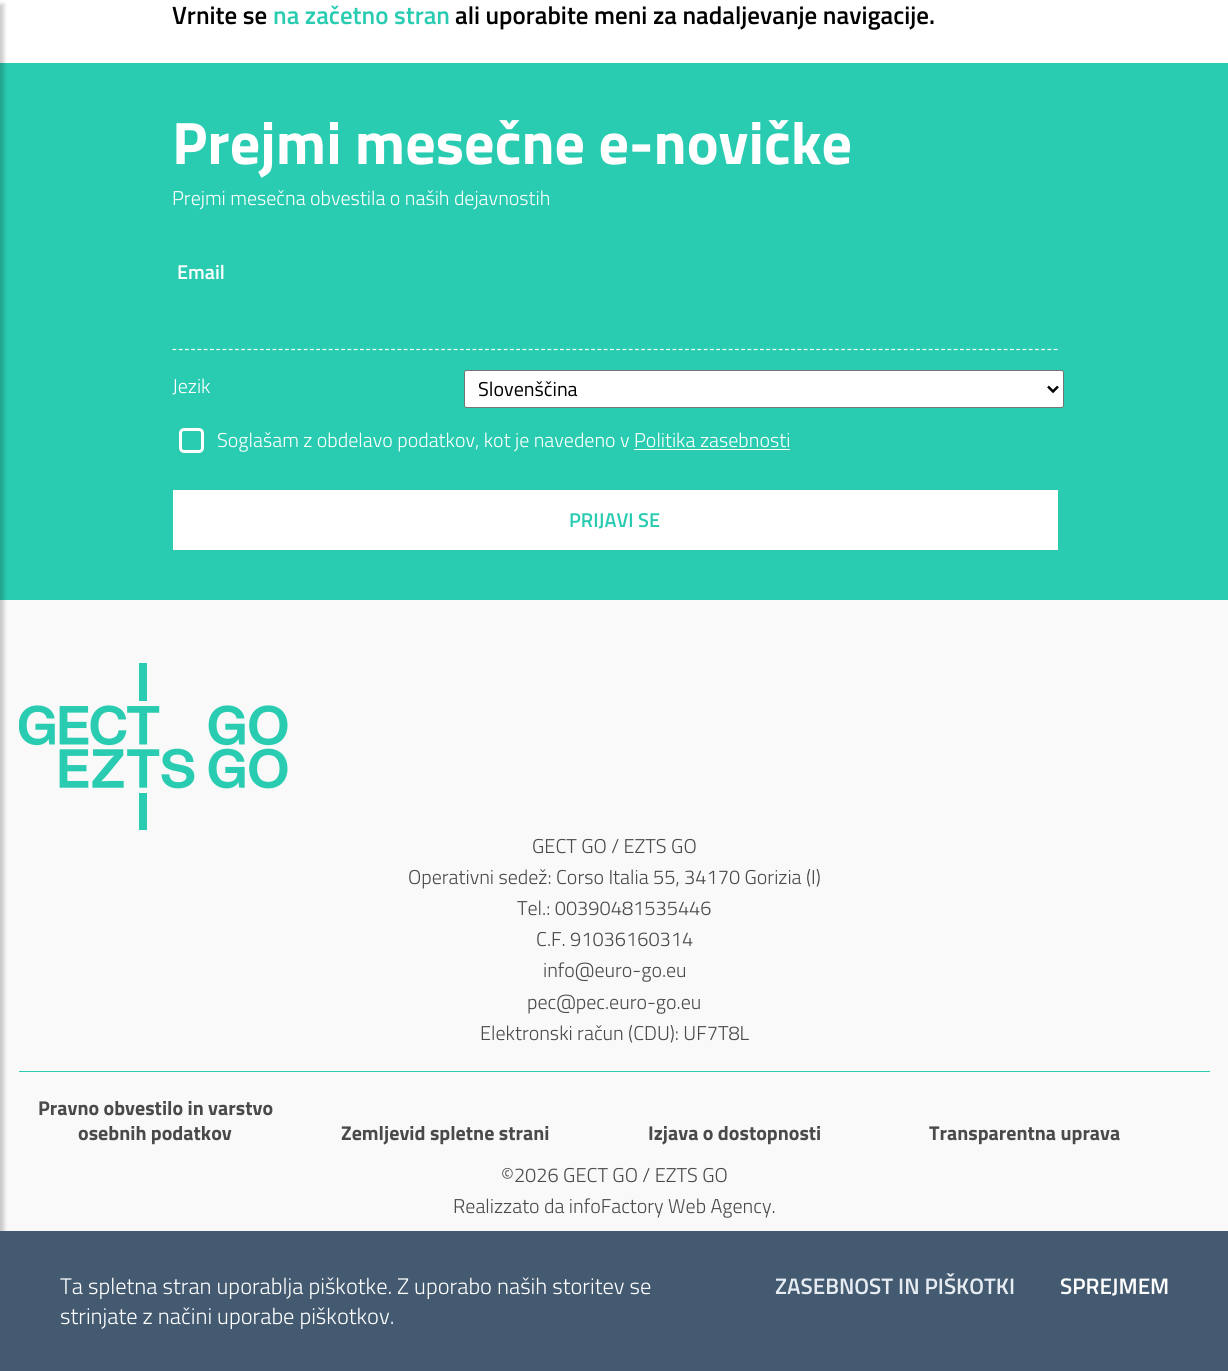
import math
import cairo

surface = cairo.ImageSurface(cairo.Format.RGB24, 1228, 1371)
ctx = cairo.Context(surface)
options = cairo.FontOptions()
options.set_hint_metrics(cairo.HintMetrics.OFF)
options.set_hint_style(cairo.HintStyle.NONE)
ctx.set_font_options(options)
ctx.set_miter_limit(4)


def ink(r, g, b):
    ctx.set_source_rgb(r / 255, g / 255, b / 255)


def write(x, y, s, family, size, color, bold=False, italic=False):
    ctx.select_font_face(family, cairo.FontSlant.ITALIC if italic else cairo.FontSlant.NORMAL, cairo.FontWeight.BOLD if bold else cairo.FontWeight.NORMAL)
    ctx.set_font_size(size)
    ink(*color)
    ctx.move_to(x, y)
    ctx.show_text(s)


def block(x, y, w, h, *color):
    ink(*color)
    ctx.rectangle(x, y, w, h)
    ctx.fill()


def round_path(x, y, w, h, r):
    ctx.new_sub_path()
    for i, (u, v) in enumerate([(x + w - r, y + h - r), (x + r, y + h - r), (x + r, y + r), (x + w - r, y + r)]):
        ctx.arc(u, v, r, i * math.pi / 2, (i + 1) * math.pi / 2)
    ctx.close_path()


def blur_box(x, y, w, h, r, blur, alpha):
    ctx.push_group_with_content(cairo.Content.ALPHA)
    ctx.set_operator(cairo.Operator.SOURCE)
    for i in range(15, -16, -2):
        e = blur * i / 6
        if min(w, h) + 2 * e > 0:
            ctx.set_source_rgba(0, 0, 0, alpha * math.erfc((i - 1) / 8.5) / 2)
            round_path(x - e, y - e, w + 2 * e, h + 2 * e, max(0, min(r + e + blur * .6, min(w, h) / 2 + e)))
            ctx.fill()
    ctx.mask(ctx.pop_group())


def paste(path, x, y, w, h):
    ctx.save()
    ctx.set_source_surface(cairo.ImageSurface.create_from_png(path), x, y)
    ctx.rectangle(x, y, w, h)
    ctx.fill()
    ctx.restore()


s1 = dict(family="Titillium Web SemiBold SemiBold", size=25, color=(0, 0, 0))
s2 = dict(family="Titillium Web SemiBold SemiBold", size=25, color=(41, 204, 177))
s3 = dict(family="Titillium Web", size=60, color=(255, 255, 255), bold=True)
s4 = dict(family="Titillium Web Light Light", size=20, color=(255, 255, 255))
s5 = dict(family="Titillium Web SemiBold SemiBold", size=20, color=(255, 255, 255))
s6 = dict(family="Titillium Web", size=20, color=(0, 0, 0))
s7 = dict(family="Titillium Web SemiBold SemiBold", size=20, color=(41, 204, 177))
s8 = dict(family="Titillium Web Light Light", size=20, color=(74, 74, 74))
s9 = dict(family="Titillium Web", size=20, color=(74, 74, 74), bold=True)
s10 = dict(family="Titillium Web Light Light", size=22.5, color=(255, 255, 255))
s11 = dict(family="Titillium Web SemiBold SemiBold", size=22.5, color=(230, 236, 242))
s12 = dict(family="Titillium Web SemiBold SemiBold", size=22.5, color=(255, 255, 255))

ink(255, 255, 255)
ctx.paint()
block(0, 63, 1228, 537, 41, 204, 177)
block(0, 600, 1228, 631, 249, 249, 249)
ink(0, 0, 0)
blur_box(-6, 4, 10, 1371, 0, 2, 0.2)
write(172, 24, "Vrnite se", **s1)
write(273, 24, "na začetno stran", **s2)
write(455, 24, "ali uporabite meni za nadaljevanje navigacije.", **s1)
write(172, 164, "Prejmi mesečne e-novičke", **s3)
write(172, 205, "Prejmi mesečna obvestila o naših dejavnostih", **s4)
write(177, 279, "Email", **s5)
ctx.new_path()
ctx.move_to(172.5, 349.5)
ctx.line_to(1057.5, 349.5)
ctx.set_line_width(1.2)
ctx.set_dash([3.75, 2.5])
ctx.stroke()
write(172, 393, "Jezik", **s4)
round_path(464.5, 370.5, 599, 37, 2)
ctx.fill_preserve()
ink(118, 118, 118)
ctx.set_line_width(1)
ctx.set_dash([])
ctx.stroke()
ctx.new_path()
ctx.move_to(1048, 386.5)
ctx.line_to(1053, 391.5)
ctx.line_to(1058, 386.5)
ink(0, 0, 0)
ctx.set_line_width(2.5)
ctx.stroke()
write(478, 396, "Slovenščina", **s6)
round_path(180.5, 429.5, 22, 22, 3.5)
ink(255, 255, 255)
ctx.set_line_width(3)
ctx.stroke()
write(217, 447, "Soglašam z obdelavo podatkov, kot je navedeno v Politika zasebnosti", **s4)
block(634, 449, 156, 1, 255, 255, 255)
block(173, 490, 885, 60, 255, 255, 255)
write(569, 527, "PRIJAVI SE", **s7)
paste("pic1.png", 19, 663, 269, 167)
write(532, 853, "GECT GO / EZTS GO", **s8)
write(408, 884, "Operativni sedež: Corso Italia 55, 34170 Gorizia (I)", **s8)
write(517, 915, "Tel.: 00390481535446", **s8)
write(536, 946, "C.F. 91036160314", **s8)
write(543, 977, "info@euro-go.eu", **s8)
write(527, 1009, "pec@pec.euro-go.eu", **s8)
write(480, 1040, "Elektronski račun (CDU): UF7T8L", **s8)
block(19, 1071, 1191, 1, 41, 204, 177)
write(38, 1115, "Pravno obvestilo in varstvo", **s9)
write(78, 1140, "osebnih podatkov", **s9)
write(341, 1140, "Zemljevid spletne strani", **s9)
write(648, 1140, "Izjava o dostopnosti", **s9)
write(929, 1140, "Transparentna uprava", **s9)
write(501, 1182, "©2026 GECT GO / EZTS GO", **s8)
write(453, 1213, "Realizzato da infoFactory Web Agency.", **s8)
block(0, 1231, 1228, 140, 67, 90, 112)
write(60, 1294, "Ta spletna stran uporablja piškotke. Z uporabo naših storitev se", **s10)
write(60, 1324, "strinjate z načini uporabe piškotkov.", **s10)
write(775, 1294, "ZASEBNOST IN PIŠKOTKI", **s11)
write(1060, 1294, "SPREJMEM", **s12)
surface.write_to_png("screenshot.png")
